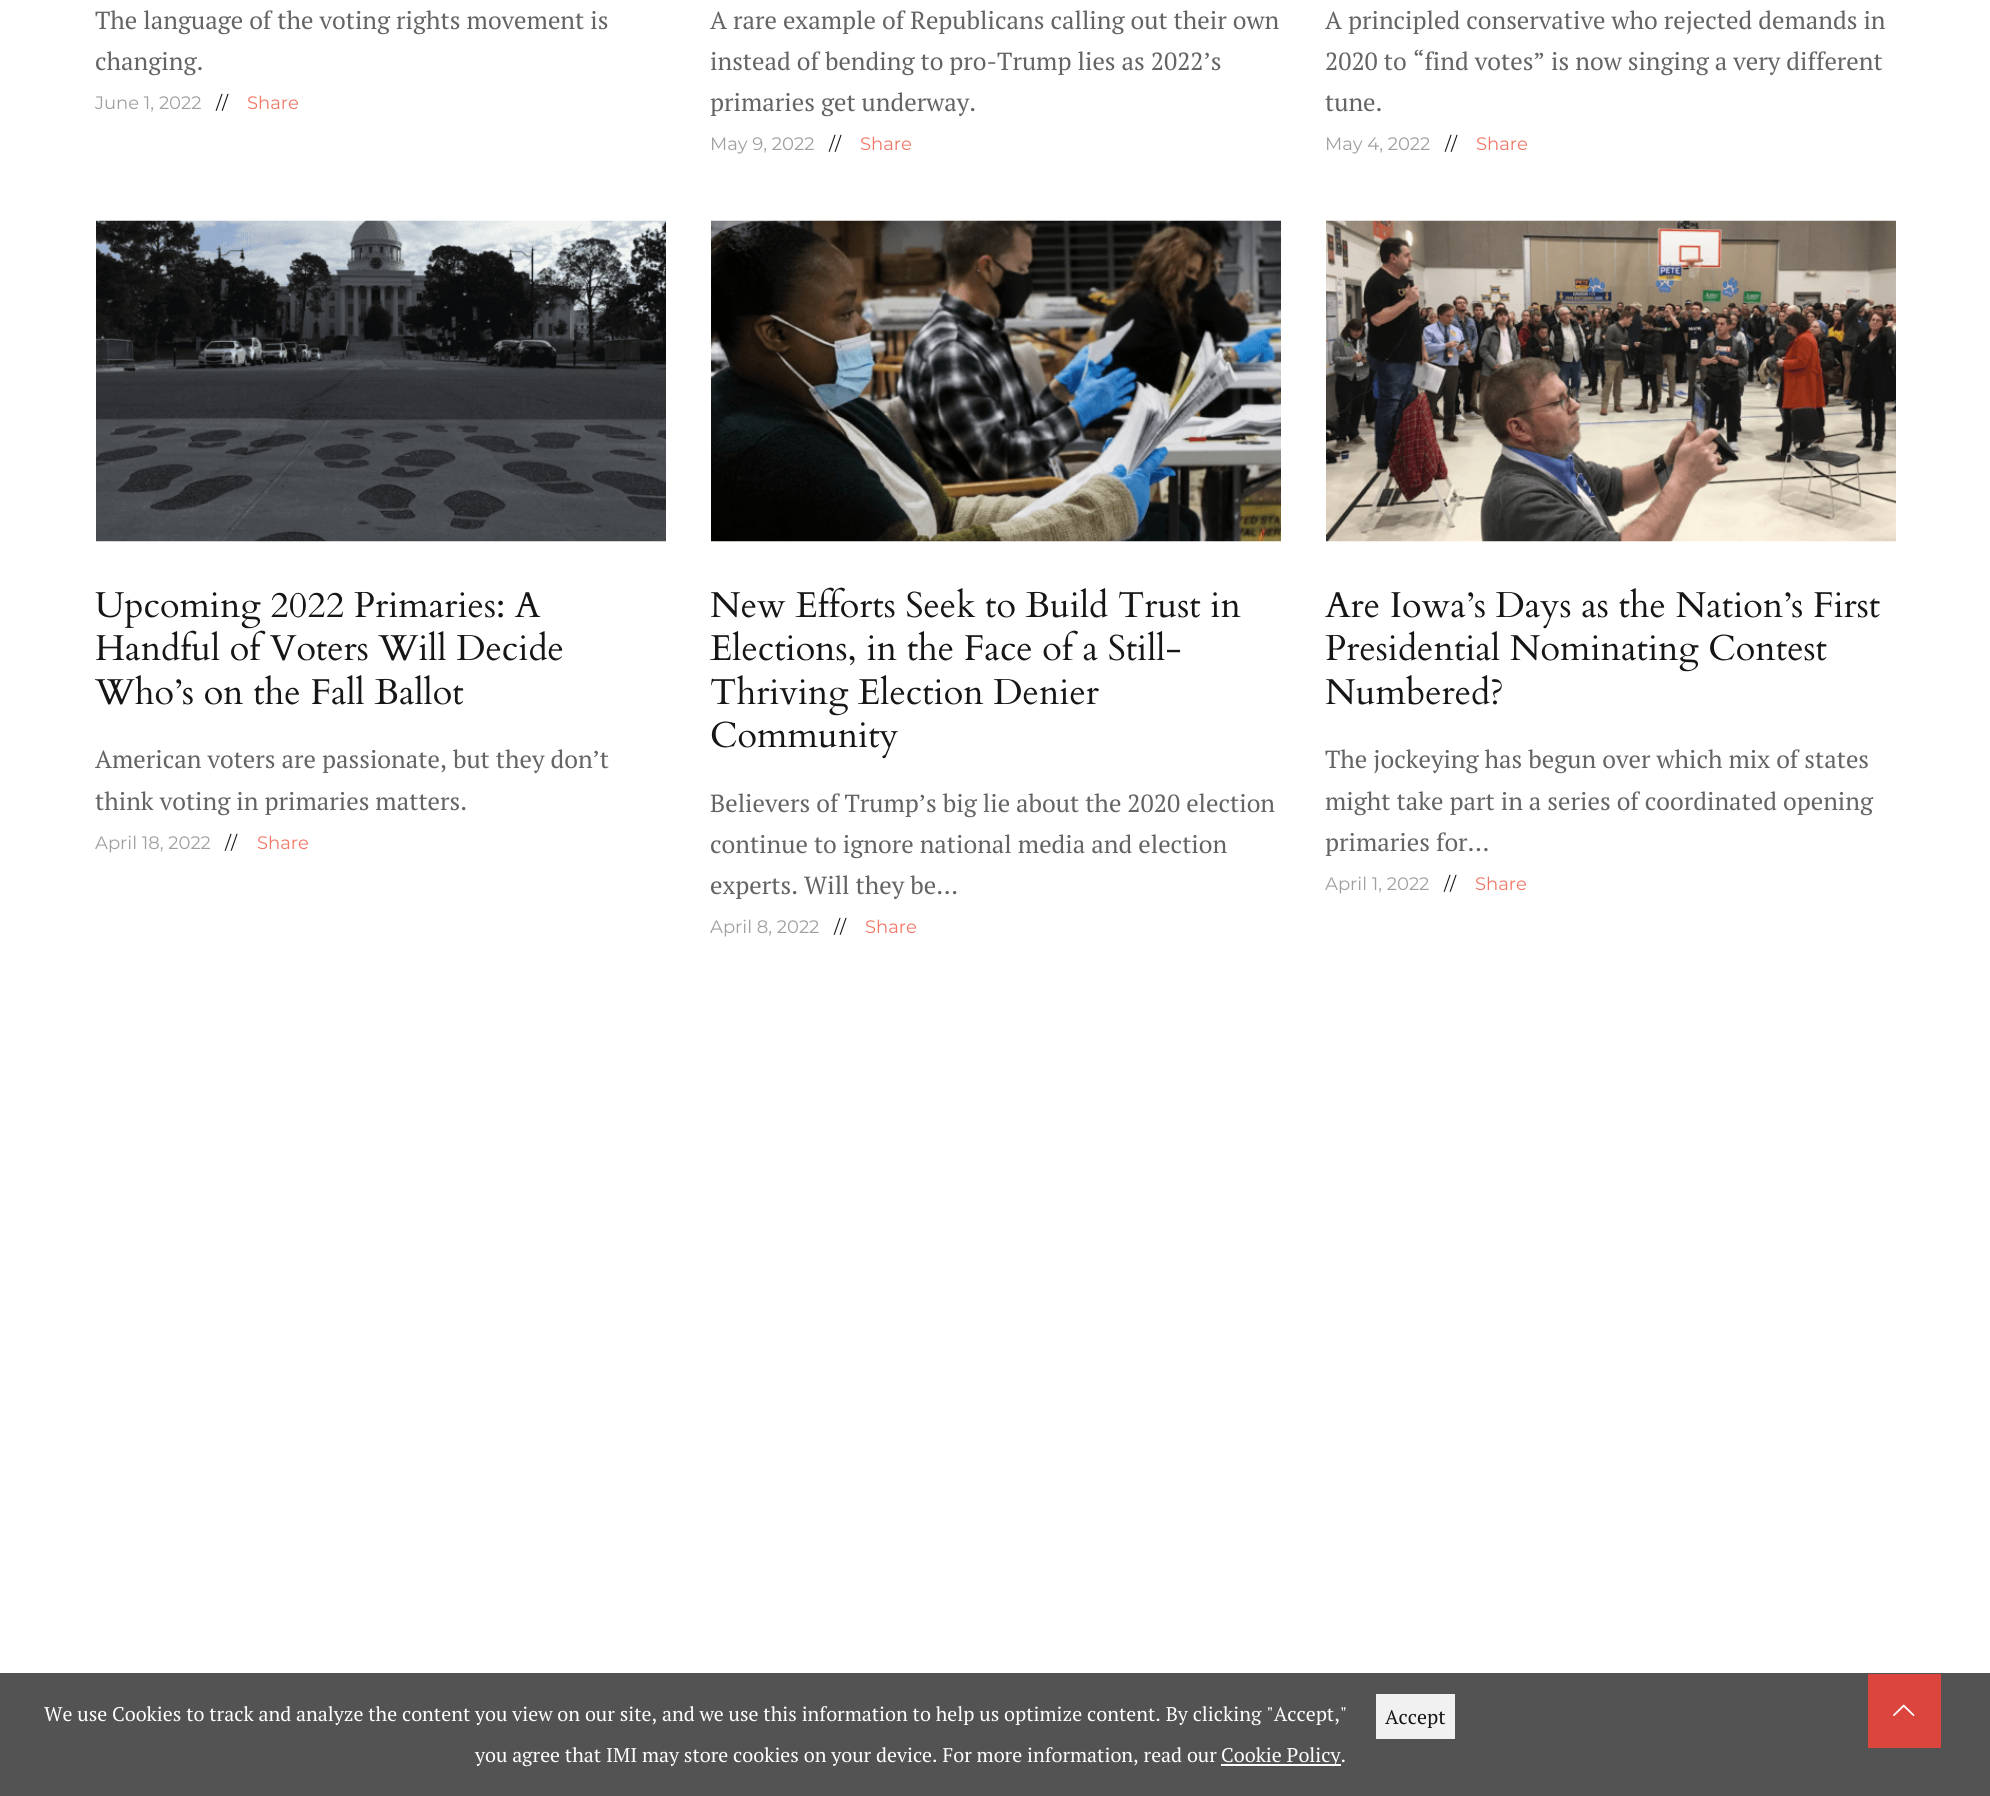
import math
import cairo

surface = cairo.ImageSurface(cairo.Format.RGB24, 1990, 1796)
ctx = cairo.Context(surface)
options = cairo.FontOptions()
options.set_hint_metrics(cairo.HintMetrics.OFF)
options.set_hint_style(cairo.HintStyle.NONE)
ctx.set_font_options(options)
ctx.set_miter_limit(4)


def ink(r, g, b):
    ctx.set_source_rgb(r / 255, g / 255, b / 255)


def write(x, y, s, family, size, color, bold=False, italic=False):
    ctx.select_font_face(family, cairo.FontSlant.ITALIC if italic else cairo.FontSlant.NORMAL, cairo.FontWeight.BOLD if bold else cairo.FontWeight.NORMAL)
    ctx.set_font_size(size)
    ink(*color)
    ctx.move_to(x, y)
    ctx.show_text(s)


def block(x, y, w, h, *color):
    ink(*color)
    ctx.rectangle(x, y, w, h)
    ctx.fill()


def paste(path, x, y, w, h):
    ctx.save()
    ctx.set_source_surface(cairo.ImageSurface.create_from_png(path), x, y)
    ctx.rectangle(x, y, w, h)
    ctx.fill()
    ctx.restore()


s1 = dict(family="PT Serif", size=24.75, color=(100, 100, 100))
s2 = dict(family="Montserrat", size=18, color=(159, 159, 159))
s3 = dict(family="Montserrat", size=18, color=(22, 22, 22))
s4 = dict(family="Montserrat", size=18, color=(241, 119, 102))
s5 = dict(family="Cardo", size=36, color=(22, 22, 22))
s6 = dict(family="PT Serif", size=19.8, color=(255, 255, 255))
s7 = dict(family="PT Serif", size=19.8, color=(22, 22, 22))

ink(255, 255, 255)
ctx.paint()
write(95, 29, "The language of the voting rights movement is", **s1)
write(95, 70, "changing.", **s1)
write(95, 109, "June 1, 2022", **s2)
write(216, 109, "//", **s3)
write(247, 109, "Share", **s4)
write(710, 29, "A rare example of Republicans calling out their own", **s1)
write(710, 70, "instead of bending to pro-Trump lies as 2022’s", **s1)
write(710, 111, "primaries get underway.", **s1)
write(710, 150, "May 9, 2022", **s2)
write(829, 150, "//", **s3)
write(860, 150, "Share", **s4)
write(1325, 29, "A principled conservative who rejected demands in", **s1)
write(1325, 70, "2020 to “find votes” is now singing a very different", **s1)
write(1325, 111, "tune.", **s1)
write(1325, 150, "May 4, 2022", **s2)
write(1445, 150, "//", **s3)
write(1476, 150, "Share", **s4)
paste("pic1.png", 96, 220, 570, 322)
write(95, 617, "Upcoming 2022 Primaries: A", **s5)
write(95, 660, "Handful of Voters Will Decide", **s5)
write(95, 704, "Who’s on the Fall Ballot", **s5)
write(95, 768, "American voters are passionate, but they don’t", **s1)
write(95, 810, "think voting in primaries matters.", **s1)
write(95, 849, "April 18, 2022", **s2)
write(225, 849, "//", **s3)
write(257, 849, "Share", **s4)
paste("pic2.png", 711, 220, 570, 322)
write(710, 617, "New Efforts Seek to Build Trust in", **s5)
write(710, 660, "Elections, in the Face of a Still-", **s5)
write(710, 704, "Thriving Election Denier", **s5)
write(710, 747, "Community", **s5)
write(710, 812, "Believers of Trump’s big lie about the 2020 election", **s1)
write(710, 853, "continue to ignore national media and election", **s1)
write(710, 894, "experts. Will they be…", **s1)
write(710, 933, "April 8, 2022", **s2)
write(834, 933, "//", **s3)
write(865, 933, "Share", **s4)
paste("pic3.png", 1326, 220, 570, 322)
write(1325, 617, "Are Iowa’s Days as the Nation’s First", **s5)
write(1325, 660, "Presidential Nominating Contest", **s5)
write(1325, 704, "Numbered?", **s5)
write(1325, 768, "The jockeying has begun over which mix of states", **s1)
write(1325, 810, "might take part in a series of coordinated opening", **s1)
write(1325, 851, "primaries for…", **s1)
write(1325, 890, "April 1, 2022", **s2)
write(1444, 890, "//", **s3)
write(1475, 890, "Share", **s4)
block(0, 1673, 1990, 123, 83, 83, 83)
write(44, 1721, "We use Cookies to track and analyze the content you view on our site, and we use this information to help us optimize content. By clicking \"Accept,\"", **s6)
write(475, 1762, "you agree that IMI may store cookies on your device. For more information, read our", **s6)
block(1221, 1764, 120, 2, 255, 255, 255)
write(1221, 1762, "Cookie Policy.", **s6)
block(1376, 1694, 79, 45, 241, 241, 241)
write(1385, 1724, "Accept", **s7)
block(1868, 1674, 73, 74, 220, 69, 62)
paste("pic4.png", 1893, 1704, 22, 12)
surface.write_to_png("screenshot.png")
